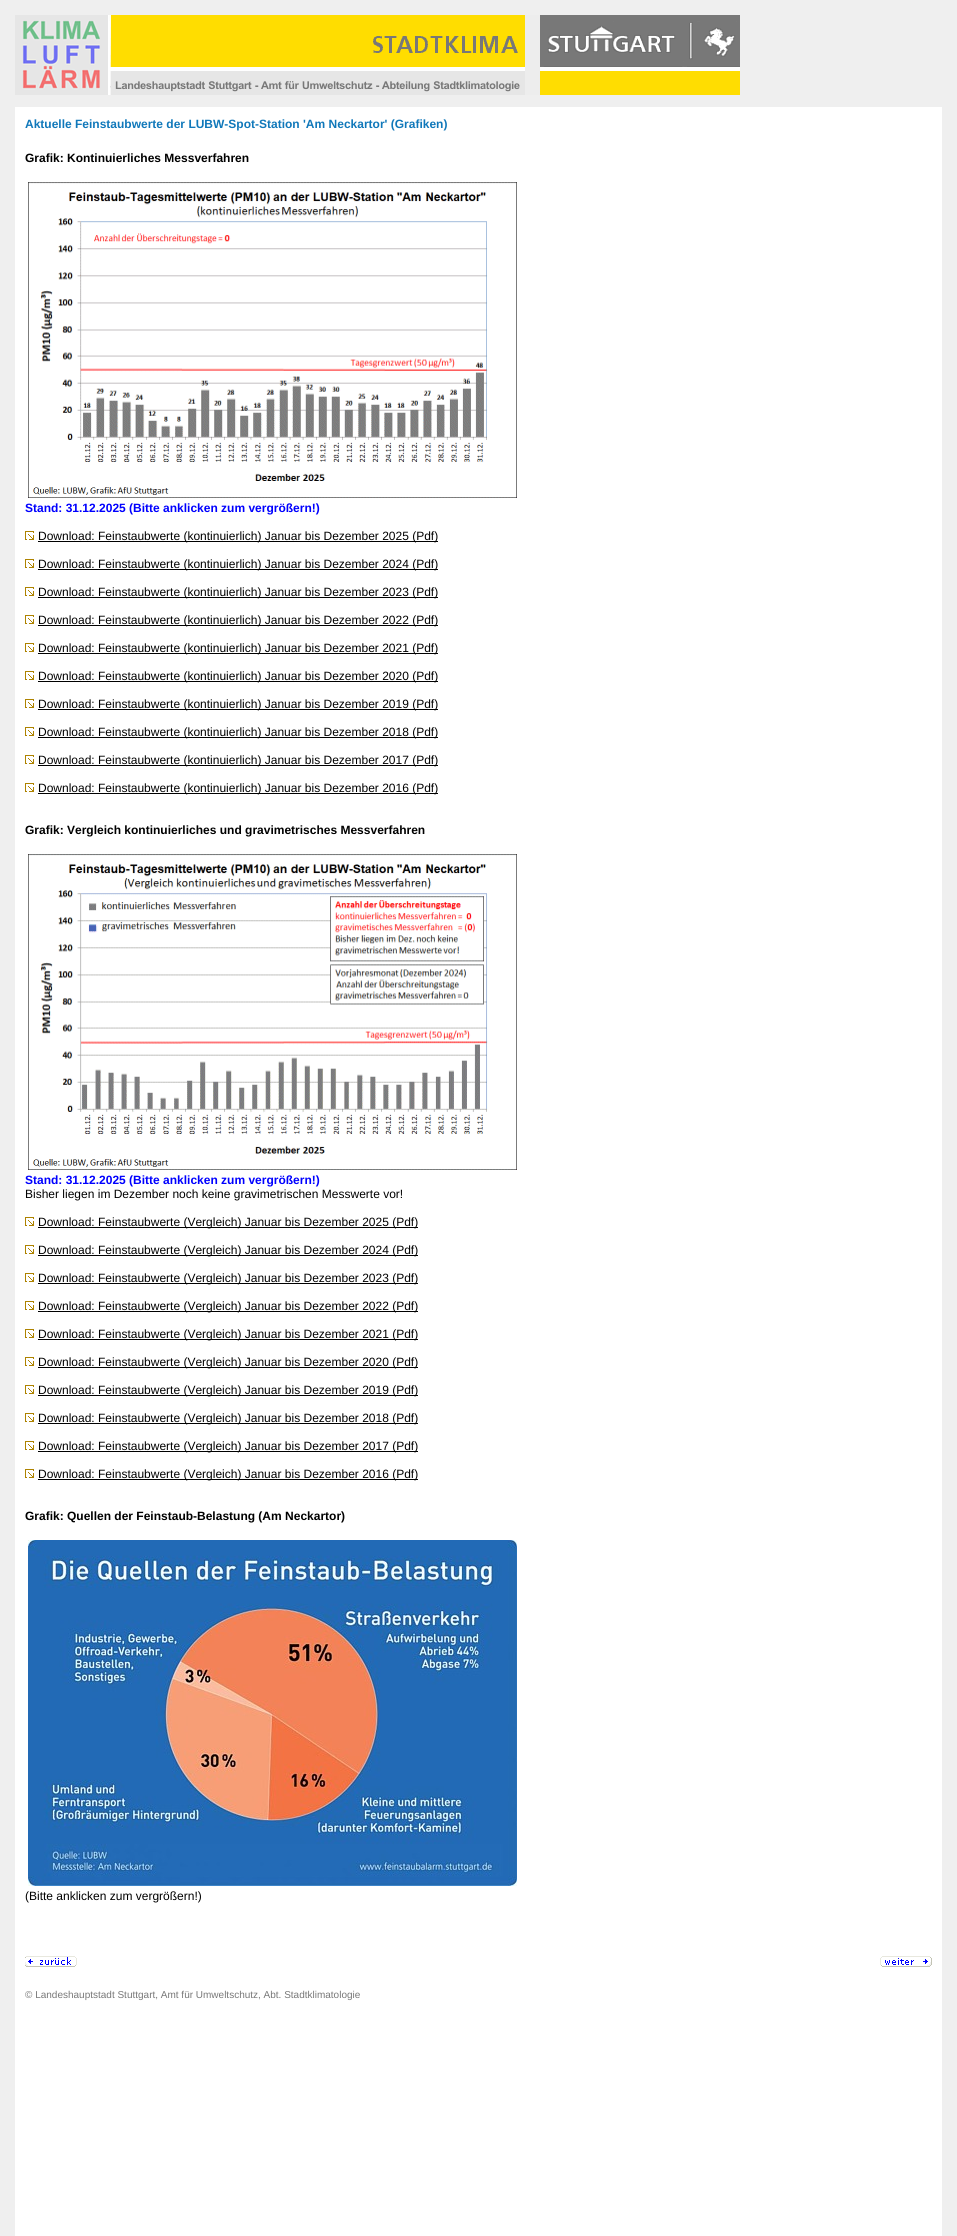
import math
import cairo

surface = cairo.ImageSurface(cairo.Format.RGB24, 957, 2236)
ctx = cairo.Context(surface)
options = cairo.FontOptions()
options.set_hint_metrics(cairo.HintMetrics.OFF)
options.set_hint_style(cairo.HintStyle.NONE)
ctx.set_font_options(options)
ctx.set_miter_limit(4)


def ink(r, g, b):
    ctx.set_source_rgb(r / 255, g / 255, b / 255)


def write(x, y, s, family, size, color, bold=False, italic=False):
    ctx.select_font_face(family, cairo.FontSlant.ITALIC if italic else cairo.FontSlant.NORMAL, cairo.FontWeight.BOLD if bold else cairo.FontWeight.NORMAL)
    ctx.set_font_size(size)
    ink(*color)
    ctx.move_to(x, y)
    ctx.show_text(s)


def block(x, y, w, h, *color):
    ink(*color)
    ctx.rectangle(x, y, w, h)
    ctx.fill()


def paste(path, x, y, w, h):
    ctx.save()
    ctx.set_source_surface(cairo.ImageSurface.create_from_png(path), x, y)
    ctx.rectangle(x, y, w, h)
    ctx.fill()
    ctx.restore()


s1 = dict(family="Liberation Sans", size=12, color=(16, 120, 186), bold=True)
s2 = dict(family="Liberation Sans", size=12, color=(0, 0, 0), bold=True)
s3 = dict(family="Liberation Sans", size=12, color=(0, 0, 255), bold=True)
s4 = dict(family="Liberation Sans", size=12, color=(0, 0, 0))
s5 = dict(family="Liberation Sans", size=10, color=(120, 120, 120))

ink(239, 239, 239)
ctx.paint()
paste("pic1.png", 15, 15, 725, 80)
block(15, 107, 927, 2129, 255, 255, 255)
write(25, 128, "Aktuelle Feinstaubwerte der LUBW-Spot-Station 'Am Neckartor' (Grafiken)", **s1)
write(25, 162, "Grafik: Kontinuierliches Messverfahren", **s2)
paste("pic2.png", 28, 182, 489, 316)
write(25, 512, "Stand: 31.12.2025 (Bitte anklicken zum vergrößern!)", **s3)
paste("pic3.png", 25, 531, 9, 9)
block(38, 541, 400, 1, 0, 0, 0)
write(38, 540, "Download: Feinstaubwerte (kontinuierlich) Januar bis Dezember 2025 (Pdf)", **s4)
paste("pic3.png", 25, 559, 9, 9)
block(38, 569, 400, 1, 0, 0, 0)
write(38, 568, "Download: Feinstaubwerte (kontinuierlich) Januar bis Dezember 2024 (Pdf)", **s4)
paste("pic3.png", 25, 587, 9, 9)
block(38, 597, 400, 1, 0, 0, 0)
write(38, 596, "Download: Feinstaubwerte (kontinuierlich) Januar bis Dezember 2023 (Pdf)", **s4)
paste("pic3.png", 25, 615, 9, 9)
block(38, 625, 400, 1, 0, 0, 0)
write(38, 624, "Download: Feinstaubwerte (kontinuierlich) Januar bis Dezember 2022 (Pdf)", **s4)
paste("pic3.png", 25, 643, 9, 9)
block(38, 653, 400, 1, 0, 0, 0)
write(38, 652, "Download: Feinstaubwerte (kontinuierlich) Januar bis Dezember 2021 (Pdf)", **s4)
paste("pic3.png", 25, 671, 9, 9)
block(38, 681, 400, 1, 0, 0, 0)
write(38, 680, "Download: Feinstaubwerte (kontinuierlich) Januar bis Dezember 2020 (Pdf)", **s4)
paste("pic3.png", 25, 699, 9, 9)
block(38, 709, 400, 1, 0, 0, 0)
write(38, 708, "Download: Feinstaubwerte (kontinuierlich) Januar bis Dezember 2019 (Pdf)", **s4)
paste("pic3.png", 25, 727, 9, 9)
block(38, 737, 400, 1, 0, 0, 0)
write(38, 736, "Download: Feinstaubwerte (kontinuierlich) Januar bis Dezember 2018 (Pdf)", **s4)
paste("pic3.png", 25, 755, 9, 9)
block(38, 765, 400, 1, 0, 0, 0)
write(38, 764, "Download: Feinstaubwerte (kontinuierlich) Januar bis Dezember 2017 (Pdf)", **s4)
paste("pic3.png", 25, 783, 9, 9)
block(38, 793, 400, 1, 0, 0, 0)
write(38, 792, "Download: Feinstaubwerte (kontinuierlich) Januar bis Dezember 2016 (Pdf)", **s4)
write(25, 834, "Grafik: Vergleich kontinuierliches und gravimetrisches Messverfahren", **s2)
paste("pic4.png", 28, 854, 489, 316)
write(25, 1184, "Stand: 31.12.2025 (Bitte anklicken zum vergrößern!)", **s3)
write(25, 1198, "Bisher liegen im Dezember noch keine gravimetrischen Messwerte vor!", **s4)
paste("pic3.png", 25, 1217, 9, 9)
block(38, 1227, 380, 1, 0, 0, 0)
write(38, 1226, "Download: Feinstaubwerte (Vergleich) Januar bis Dezember 2025 (Pdf)", **s4)
paste("pic3.png", 25, 1245, 9, 9)
block(38, 1255, 380, 1, 0, 0, 0)
write(38, 1254, "Download: Feinstaubwerte (Vergleich) Januar bis Dezember 2024 (Pdf)", **s4)
paste("pic3.png", 25, 1273, 9, 9)
block(38, 1283, 380, 1, 0, 0, 0)
write(38, 1282, "Download: Feinstaubwerte (Vergleich) Januar bis Dezember 2023 (Pdf)", **s4)
paste("pic3.png", 25, 1301, 9, 9)
block(38, 1311, 380, 1, 0, 0, 0)
write(38, 1310, "Download: Feinstaubwerte (Vergleich) Januar bis Dezember 2022 (Pdf)", **s4)
paste("pic3.png", 25, 1329, 9, 9)
block(38, 1339, 380, 1, 0, 0, 0)
write(38, 1338, "Download: Feinstaubwerte (Vergleich) Januar bis Dezember 2021 (Pdf)", **s4)
paste("pic3.png", 25, 1357, 9, 9)
block(38, 1367, 380, 1, 0, 0, 0)
write(38, 1366, "Download: Feinstaubwerte (Vergleich) Januar bis Dezember 2020 (Pdf)", **s4)
paste("pic3.png", 25, 1385, 9, 9)
block(38, 1395, 380, 1, 0, 0, 0)
write(38, 1394, "Download: Feinstaubwerte (Vergleich) Januar bis Dezember 2019 (Pdf)", **s4)
paste("pic3.png", 25, 1413, 9, 9)
block(38, 1423, 380, 1, 0, 0, 0)
write(38, 1422, "Download: Feinstaubwerte (Vergleich) Januar bis Dezember 2018 (Pdf)", **s4)
paste("pic3.png", 25, 1441, 9, 9)
block(38, 1451, 380, 1, 0, 0, 0)
write(38, 1450, "Download: Feinstaubwerte (Vergleich) Januar bis Dezember 2017 (Pdf)", **s4)
paste("pic3.png", 25, 1469, 9, 9)
block(38, 1479, 380, 1, 0, 0, 0)
write(38, 1478, "Download: Feinstaubwerte (Vergleich) Januar bis Dezember 2016 (Pdf)", **s4)
write(25, 1520, "Grafik: Quellen der Feinstaub-Belastung (Am Neckartor)", **s2)
paste("pic5.png", 28, 1540, 489, 346)
write(25, 1900, "(Bitte anklicken zum vergrößern!)", **s4)
paste("pic6.png", 25, 1956, 52, 11)
paste("pic7.png", 880, 1956, 52, 11)
write(25, 1998, "© Landeshauptstadt Stuttgart, Amt für Umweltschutz, Abt. Stadtklimatologie", **s5)
surface.write_to_png("screenshot.png")
